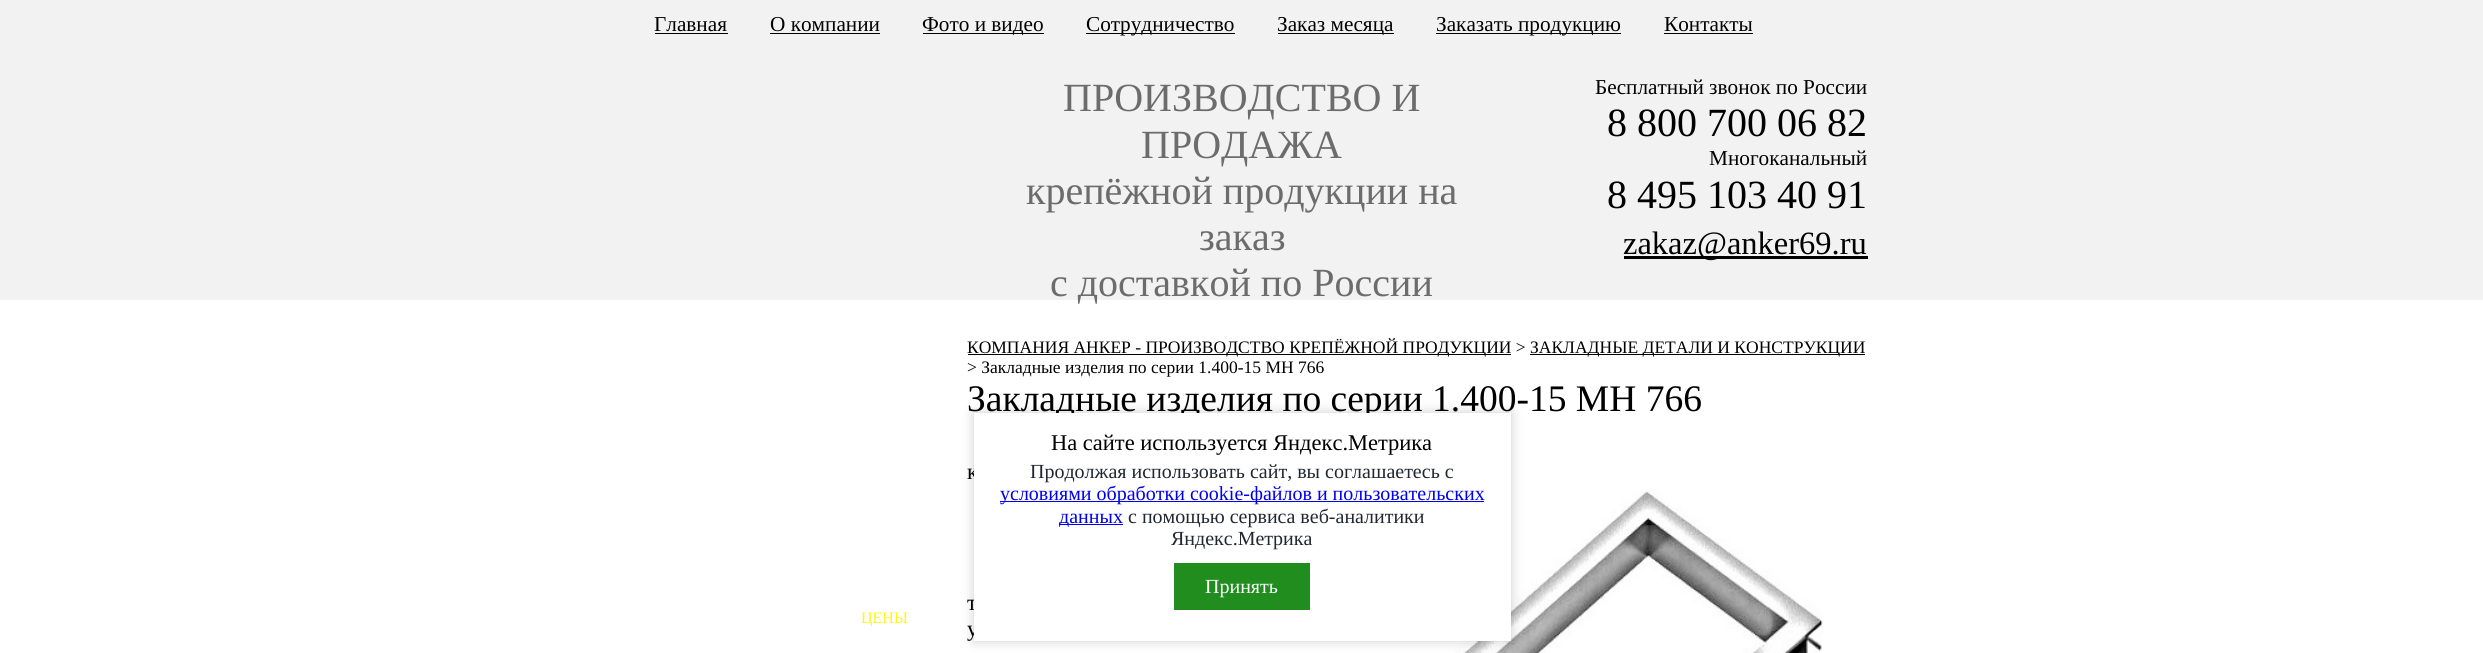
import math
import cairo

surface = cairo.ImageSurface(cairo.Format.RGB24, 2483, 653)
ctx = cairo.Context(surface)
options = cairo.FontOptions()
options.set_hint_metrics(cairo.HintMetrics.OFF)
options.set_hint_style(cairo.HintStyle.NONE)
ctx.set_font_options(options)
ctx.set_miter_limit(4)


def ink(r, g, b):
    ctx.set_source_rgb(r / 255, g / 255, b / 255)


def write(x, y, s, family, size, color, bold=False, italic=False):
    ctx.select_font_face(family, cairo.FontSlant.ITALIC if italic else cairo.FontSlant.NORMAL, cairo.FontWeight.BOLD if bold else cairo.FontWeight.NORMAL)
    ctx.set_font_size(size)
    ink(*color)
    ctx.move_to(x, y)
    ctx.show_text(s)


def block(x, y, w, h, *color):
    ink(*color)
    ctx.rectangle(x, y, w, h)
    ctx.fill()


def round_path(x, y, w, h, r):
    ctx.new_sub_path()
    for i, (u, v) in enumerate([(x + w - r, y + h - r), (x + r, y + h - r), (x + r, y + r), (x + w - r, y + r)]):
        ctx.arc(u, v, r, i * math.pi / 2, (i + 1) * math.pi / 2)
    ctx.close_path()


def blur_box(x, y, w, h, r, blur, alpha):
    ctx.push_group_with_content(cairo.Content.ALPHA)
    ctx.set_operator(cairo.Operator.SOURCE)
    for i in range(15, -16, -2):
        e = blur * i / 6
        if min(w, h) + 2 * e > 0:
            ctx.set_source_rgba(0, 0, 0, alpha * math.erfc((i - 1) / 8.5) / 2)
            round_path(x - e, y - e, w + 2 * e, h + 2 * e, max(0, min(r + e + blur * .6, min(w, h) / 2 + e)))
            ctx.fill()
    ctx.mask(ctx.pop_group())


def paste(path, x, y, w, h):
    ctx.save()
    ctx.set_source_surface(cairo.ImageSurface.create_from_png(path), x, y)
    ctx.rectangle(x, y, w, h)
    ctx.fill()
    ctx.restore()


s1 = dict(family="Liberation Serif", size=21.25, color=(0, 0, 0))
s2 = dict(family="Liberation Serif", size=40, color=(108, 108, 108))
s3 = dict(family="Liberation Serif", size=40, color=(0, 0, 0))
s4 = dict(family="Liberation Serif", size=32.5, color=(0, 0, 0))
s5 = dict(family="Liberation Serif", size=16, color=(255, 248, 10))
s6 = dict(family="Liberation Serif", size=17.5, color=(0, 0, 0))
s7 = dict(family="Liberation Serif", size=37.5, color=(0, 0, 0))
s8 = dict(family="Liberation Serif", size=22.5, color=(0, 0, 0))
s9 = dict(family="Liberation Serif", size=20, color=(33, 39, 49))
s10 = dict(family="Liberation Serif", size=20, color=(0, 0, 238))
s11 = dict(family="Liberation Serif", size=20, color=(255, 255, 255))

ink(255, 255, 255)
ctx.paint()
block(0, 0, 2483, 300, 242, 242, 242)
write(654, 31, "Главная", **s1)
block(655, 33, 73, 1, 0, 0, 0)
write(770, 31, "О компании", **s1)
block(770, 33, 110, 1, 0, 0, 0)
block(923, 33, 121, 1, 0, 0, 0)
write(922, 31, "Фото и видео", **s1)
block(1086, 33, 149, 1, 0, 0, 0)
write(1086, 31, "Сотрудничество", **s1)
block(1278, 33, 116, 1, 0, 0, 0)
write(1277, 31, "Заказ месяца", **s1)
block(1436, 33, 185, 1, 0, 0, 0)
write(1436, 31, "Заказать продукцию", **s1)
write(1664, 31, "Контакты", **s1)
block(1664, 33, 89, 1, 0, 0, 0)
write(1063, 111, "ПРОИЗВОДСТВО И", **s2)
write(1141, 158, "ПРОДАЖА", **s2)
write(1026, 204, "крепёжной продукции на", **s2)
write(1199, 250, "заказ", **s2)
write(1050, 296, "с доставкой по России", **s2)
write(1595, 94, "Бесплатный звонок по России", **s1)
write(1607, 136, "8 800 700 06 82", **s3)
write(1709, 165, "Многоканальный", **s1)
write(1607, 208, "8 495 103 40 91", **s3)
block(1624, 256, 244, 3, 0, 0, 0)
write(1623, 254, "zakaz@anker69.ru", **s4)
write(861, 623, "ЦЕНЫ", **s5)
block(968, 354, 543, 1, 0, 0, 0)
write(967, 353, "КОМПАНИЯ АНКЕР - ПРОИЗВОДСТВО КРЕПЁЖНОЙ ПРОДУКЦИИ >", **s6)
block(1530, 354, 335, 1, 0, 0, 0)
write(1530, 353, "ЗАКЛАДНЫЕ ДЕТАЛИ И КОНСТРУКЦИИ", **s6)
write(967, 373, "> Закладные изделия по серии 1.400-15 МН 766", **s6)
write(967, 411, "Закладные изделия по серии 1.400-15 МН 766", **s7)
write(967, 479, "к", **s8)
write(967, 610, "т", **s8)
paste("pic1.png", 1455, 489, 368, 164)
write(967, 636, "у", **s8)
ink(0, 0, 0)
blur_box(974, 413, 537, 228, 0, 6, 0.2)
block(974, 413, 537, 228, 255, 255, 255)
write(1051, 450, "На сайте используется Яндекс.Метрика", **s8)
write(1030, 478, "Продолжая использовать сайт, вы соглашаетесь с", **s9)
block(1000, 501, 484, 1, 0, 0, 238)
write(1000, 500, "условиями обработки cookie-файлов и пользовательских", **s10)
block(1059, 524, 64, 1, 0, 0, 238)
write(1059, 523, "данных", **s10)
write(1128, 523, "с помощью сервиса веб-аналитики", **s9)
write(1171, 545, "Яндекс.Метрика", **s9)
block(1174, 563, 136, 47, 33, 141, 30)
write(1205, 593, "Принять", **s11)
surface.write_to_png("screenshot.png")
